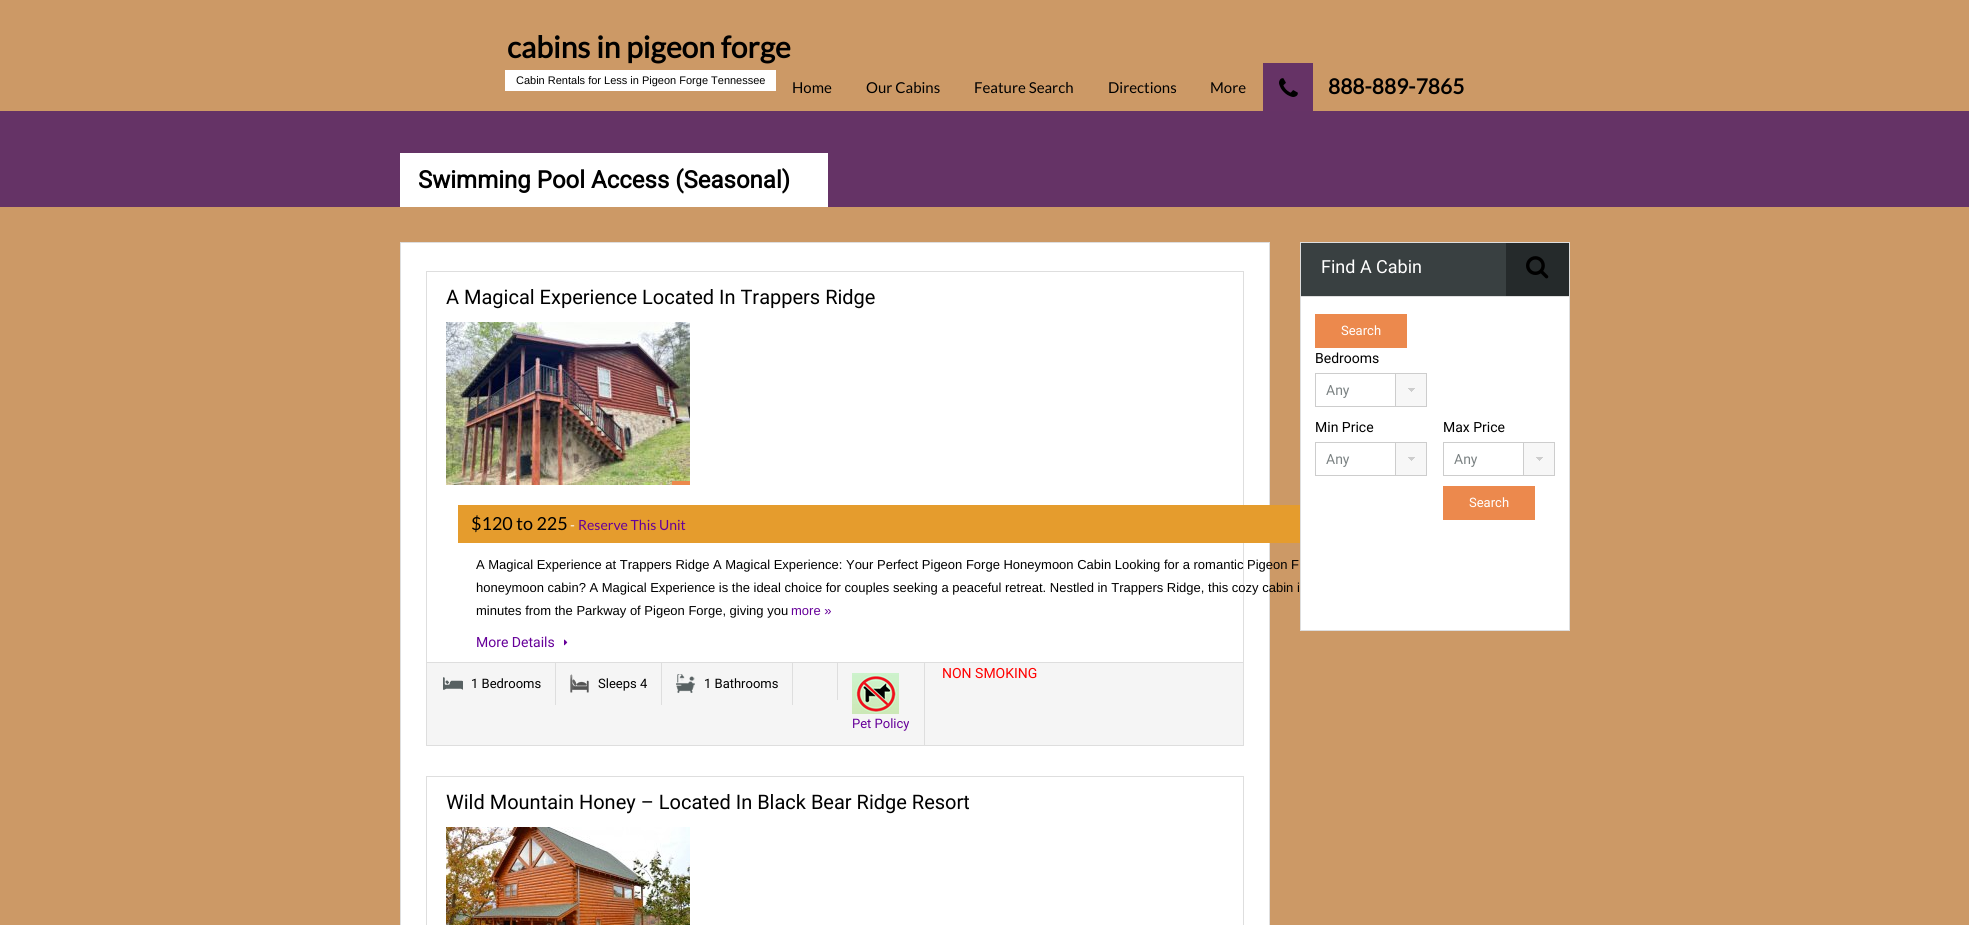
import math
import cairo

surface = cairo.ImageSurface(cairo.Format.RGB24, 1969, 925)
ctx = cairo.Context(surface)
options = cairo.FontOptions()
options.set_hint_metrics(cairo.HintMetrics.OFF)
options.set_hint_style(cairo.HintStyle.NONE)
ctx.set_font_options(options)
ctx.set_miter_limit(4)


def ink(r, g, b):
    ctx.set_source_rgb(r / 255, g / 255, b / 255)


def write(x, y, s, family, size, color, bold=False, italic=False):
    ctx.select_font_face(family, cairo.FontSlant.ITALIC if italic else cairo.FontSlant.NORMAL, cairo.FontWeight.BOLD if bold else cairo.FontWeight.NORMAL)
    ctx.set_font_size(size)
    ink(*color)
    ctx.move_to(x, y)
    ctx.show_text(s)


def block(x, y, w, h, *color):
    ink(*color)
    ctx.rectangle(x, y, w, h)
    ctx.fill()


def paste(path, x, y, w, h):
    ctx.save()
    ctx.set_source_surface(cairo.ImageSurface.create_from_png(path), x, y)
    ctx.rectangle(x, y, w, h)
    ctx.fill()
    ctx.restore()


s1 = dict(family="Lato", size=30, color=(0, 0, 0), bold=True)
s2 = dict(family="Liberation Sans", size=11, color=(0, 0, 0))
s3 = dict(family="Lato", size=15, color=(0, 0, 0))
s4 = dict(family="Lato", size=21, color=(0, 0, 0), bold=True)
s5 = dict(family="Roboto", size=24, color=(0, 0, 0), bold=True)
s6 = dict(family="Roboto", size=20, color=(0, 0, 0))
s7 = dict(family="Lato", size=18, color=(0, 0, 0))
s8 = dict(family="Lato", size=14, color=(255, 255, 255))
s9 = dict(family="Lato", size=14, color=(102, 0, 153))
s10 = dict(family="Liberation Sans", size=13, color=(0, 0, 0))
s11 = dict(family="Liberation Sans", size=13, color=(102, 0, 153))
s12 = dict(family="Roboto", size=14, color=(102, 0, 153))
s13 = dict(family="Roboto", size=14, color=(255, 0, 0))
s14 = dict(family="Roboto", size=13, color=(0, 0, 0))
s15 = dict(family="Roboto", size=13, color=(102, 0, 153))
s16 = dict(family="Roboto", size=18, color=(255, 255, 255))
s17 = dict(family="Roboto", size=13, color=(255, 255, 255))
s18 = dict(family="Roboto", size=14, color=(0, 0, 0))
s19 = dict(family="Roboto", size=14, color=(123, 130, 131))

ink(204, 153, 102)
ctx.paint()
write(507, 58, "cabins in pigeon forge", **s1)
block(505, 70, 271, 21, 255, 255, 255)
write(516, 84, "Cabin Rentals for Less in Pigeon Forge Tennessee", **s2)
write(792, 93, "Home", **s3)
write(866, 93, "Our Cabins", **s3)
write(974, 93, "Feature Search", **s3)
write(1108, 93, "Directions", **s3)
write(1210, 93, "More", **s3)
block(1263, 63, 50, 48, 102, 51, 102)
paste("pic1.png", 1279, 78, 19, 19)
write(1328, 94, "888-889-7865", **s4)
block(0, 111, 1969, 96, 101, 51, 102)
block(400, 153, 428, 54, 255, 255, 255)
write(418, 188, "Swimming Pool Access (Seasonal)", **s5)
block(1269, 242, 1, 683, 222, 222, 222)
block(400, 242, 1, 683, 222, 222, 222)
block(401, 243, 868, 682, 255, 255, 255)
block(401, 242, 868, 1, 222, 222, 222)
ctx.rectangle(426.5, 271.5, 817, 474)
ctx.set_line_width(1)
ctx.stroke()
write(446, 304, "A Magical Experience Located In Trappers Ridge", **s6)
paste("pic2.png", 446, 322, 244, 163)
block(672, 481, 18, 4, 236, 137, 77)
block(458, 505, 842, 38, 229, 156, 45)
write(471, 530, "$120 to 225", **s7)
write(570, 530, "-", **s8)
write(578, 530, "Reserve This Unit", **s9)
write(476, 569, "A Magical Experience at Trappers Ridge A Magical Experience: Your Perfect Pigeon Forge Honeymoon Cabin Looking for a romantic Pigeon F", **s10)
write(476, 592, "honeymoon cabin? A Magical Experience is the ideal choice for couples seeking a peaceful retreat. Nestled in Trappers Ridge, this cozy cabin i", **s10)
write(476, 615, "minutes from the Parkway of Pigeon Forge, giving you", **s10)
write(791, 615, "more »", **s11)
write(476, 647, "More Details", **s12)
paste("pic3.png", 564, 639, 4, 7)
block(427, 663, 816, 82, 245, 245, 245)
block(427, 662, 816, 1, 222, 222, 222)
block(837, 663, 1, 37, 222, 222, 222)
write(942, 678, "NON SMOKING", **s13)
block(555, 663, 1, 42, 222, 222, 222)
paste("pic4.png", 443, 677, 20, 13)
write(471, 688, "1 Bedrooms", **s14)
block(661, 663, 1, 42, 222, 222, 222)
paste("pic5.png", 570, 674, 19, 19)
write(598, 688, "Sleeps 4", **s14)
block(792, 663, 1, 42, 222, 222, 222)
paste("pic6.png", 676, 674, 19, 19)
write(704, 688, "1 Bathrooms", **s14)
block(924, 663, 1, 82, 222, 222, 222)
paste("pic7.png", 852, 673, 47, 41)
write(852, 728, "Pet Policy", **s15)
ctx.rectangle(426.5, 776.5, 817, 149)
ink(222, 222, 222)
ctx.stroke()
write(446, 809, "Wild Mountain Honey – Located In Black Bear Ridge Resort", **s6)
paste("pic8.png", 446, 827, 244, 98)
block(1301, 297, 268, 333, 255, 255, 255)
ctx.rectangle(1300.5, 242.5, 269, 388)
ink(222, 222, 222)
ctx.stroke()
block(1301, 243, 205, 53, 57, 64, 65)
block(1301, 296, 268, 1, 222, 222, 222)
write(1321, 273, "Find A Cabin", **s16)
block(1506, 243, 63, 53, 37, 42, 43)
paste("pic9.png", 1526, 256, 23, 23)
block(1315, 314, 92, 34, 236, 137, 77)
write(1341, 335, "Search", **s17)
write(1315, 363, "Bedrooms", **s18)
paste("pic10.png", 1395, 374, 31, 32)
ctx.rectangle(1315.5, 373.5, 111, 33)
ink(205, 205, 205)
ctx.stroke()
write(1326, 395, "Any", **s19)
write(1315, 432, "Min Price", **s18)
paste("pic10.png", 1395, 443, 31, 32)
ctx.rectangle(1315.5, 442.5, 111, 33)
ink(205, 205, 205)
ctx.stroke()
write(1326, 464, "Any", **s19)
write(1443, 432, "Max Price", **s18)
paste("pic10.png", 1523, 443, 31, 32)
ctx.rectangle(1443.5, 442.5, 111, 33)
ink(205, 205, 205)
ctx.stroke()
write(1454, 464, "Any", **s19)
block(1443, 486, 92, 34, 236, 137, 77)
write(1469, 507, "Search", **s17)
surface.write_to_png("screenshot.png")
